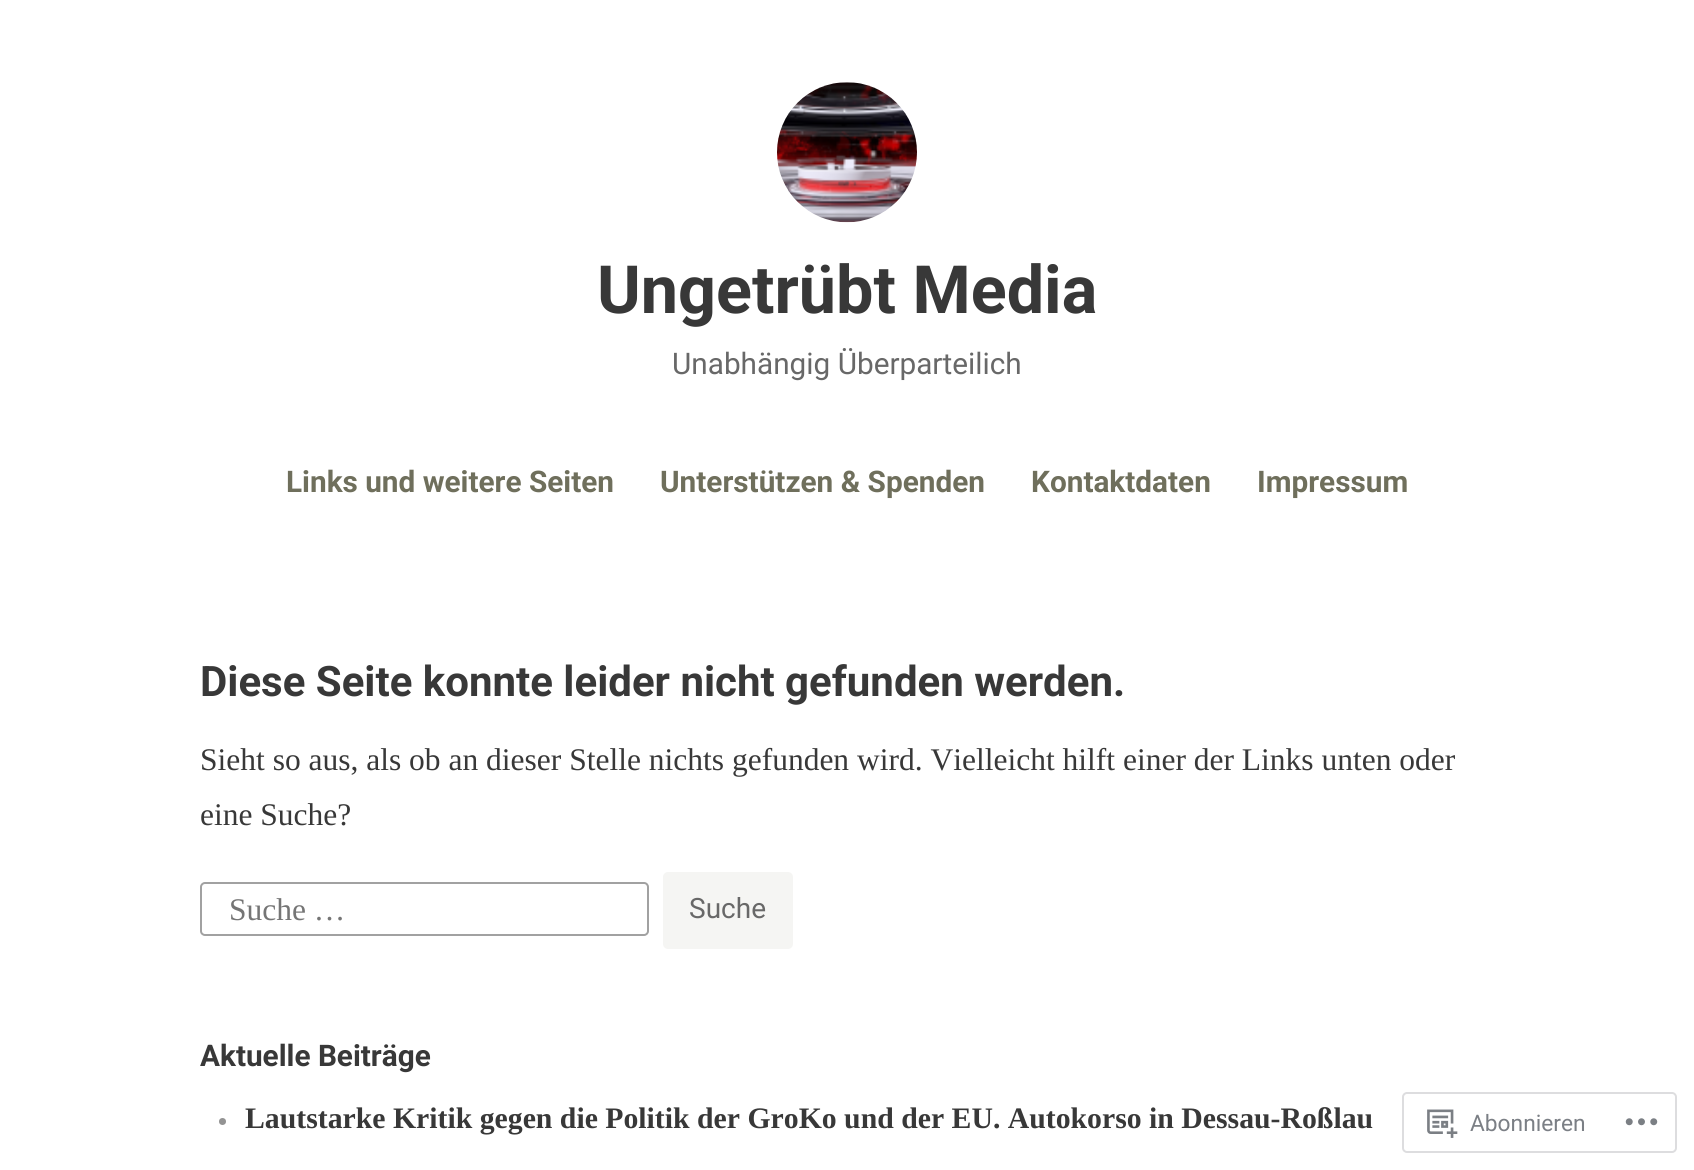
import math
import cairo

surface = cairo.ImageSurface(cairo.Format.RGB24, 1694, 1170)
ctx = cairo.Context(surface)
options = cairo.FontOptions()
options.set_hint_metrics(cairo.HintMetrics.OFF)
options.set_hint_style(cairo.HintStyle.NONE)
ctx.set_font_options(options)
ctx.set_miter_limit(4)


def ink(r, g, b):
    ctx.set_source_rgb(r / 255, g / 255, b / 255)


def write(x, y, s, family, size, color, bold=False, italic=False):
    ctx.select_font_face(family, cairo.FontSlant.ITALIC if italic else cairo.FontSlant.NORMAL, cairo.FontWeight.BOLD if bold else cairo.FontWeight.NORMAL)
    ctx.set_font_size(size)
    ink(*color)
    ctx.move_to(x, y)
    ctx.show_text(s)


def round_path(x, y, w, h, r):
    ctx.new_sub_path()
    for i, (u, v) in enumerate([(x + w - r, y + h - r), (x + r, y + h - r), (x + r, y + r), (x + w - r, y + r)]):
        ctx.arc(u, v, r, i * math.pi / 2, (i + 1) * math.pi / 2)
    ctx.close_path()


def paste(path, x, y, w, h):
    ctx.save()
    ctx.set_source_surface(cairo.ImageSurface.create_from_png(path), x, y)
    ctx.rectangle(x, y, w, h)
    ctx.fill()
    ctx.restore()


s1 = dict(family="Roboto", size=66.5, color=(56, 56, 56), bold=True)
s2 = dict(family="Roboto", size=29.75, color=(104, 104, 104))
s3 = dict(family="Roboto", size=29.75, color=(111, 111, 92), bold=True)
s4 = dict(family="Roboto", size=42, color=(56, 56, 56), bold=True)
s5 = dict(family="Liberation Serif", size=31.5, color=(56, 56, 56))
s6 = dict(family="Liberation Serif", size=31.5, color=(117, 117, 117))
s7 = dict(family="Roboto", size=28, color=(104, 104, 104))
s8 = dict(family="Roboto", size=29.75, color=(56, 56, 56), bold=True)
s9 = dict(family="Liberation Serif", size=29.75, color=(56, 56, 56), bold=True)
s10 = dict(family="Roboto", size=22.75, color=(123, 127, 133))

ink(255, 255, 255)
ctx.paint()
paste("pic1.png", 777, 82, 140, 141)
write(597, 313, "Ungetrübt Media", **s1)
write(672, 374, "Unabhängig Überparteilich", **s2)
write(286, 492, "Links und weitere Seiten", **s3)
write(660, 492, "Unterstützen & Spenden", **s3)
write(1031, 492, "Kontaktdaten", **s3)
write(1257, 492, "Impressum", **s3)
write(200, 696, "Diese Seite konnte leider nicht gefunden werden.", **s4)
write(200, 770, "Sieht so aus, als ob an dieser Stelle nichts gefunden wird. Vielleicht hilft einer der Links unten oder", **s5)
write(200, 825, "eine Suche?", **s5)
round_path(201, 883, 447, 52, 4)
ink(161, 161, 161)
ctx.stroke()
write(229, 920, "Suche …", **s6)
ink(245, 245, 243)
round_path(663, 872, 130, 77, 5)
ctx.fill()
write(689, 918, "Suche", **s7)
write(200, 1066, "Aktuelle Beiträge", **s8)
ink(147, 147, 147)
ctx.new_path()
ctx.arc(222.5, 1121.5, 3.5, 0, 2 * math.pi)
ctx.fill()
write(245, 1128, "Lautstarke Kritik gegen die Politik der GroKo und der EU. Autokorso in Dessau-Roßlau", **s9)
round_path(1403, 1093, 273, 59, 4)
ink(221, 221, 223)
ctx.stroke()
paste("pic2.png", 1427, 1109, 31, 29)
write(1470, 1131, "Abonnieren", **s10)
paste("pic3.png", 1625, 1118, 33, 8)
surface.write_to_png("screenshot.png")
